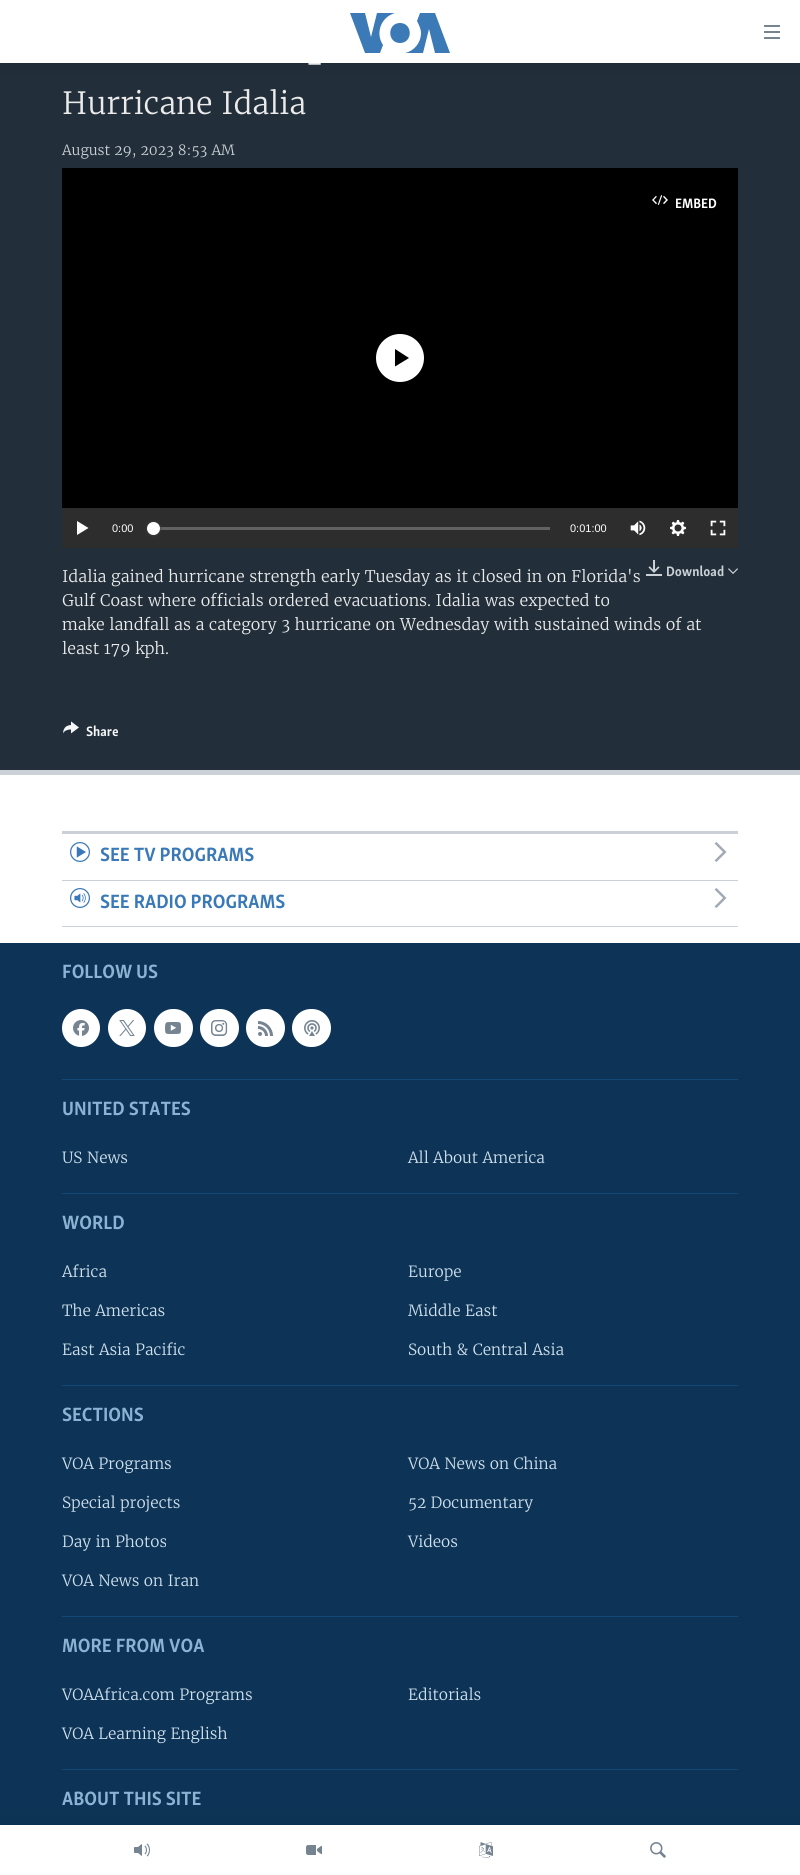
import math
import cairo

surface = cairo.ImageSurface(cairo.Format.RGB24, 800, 1875)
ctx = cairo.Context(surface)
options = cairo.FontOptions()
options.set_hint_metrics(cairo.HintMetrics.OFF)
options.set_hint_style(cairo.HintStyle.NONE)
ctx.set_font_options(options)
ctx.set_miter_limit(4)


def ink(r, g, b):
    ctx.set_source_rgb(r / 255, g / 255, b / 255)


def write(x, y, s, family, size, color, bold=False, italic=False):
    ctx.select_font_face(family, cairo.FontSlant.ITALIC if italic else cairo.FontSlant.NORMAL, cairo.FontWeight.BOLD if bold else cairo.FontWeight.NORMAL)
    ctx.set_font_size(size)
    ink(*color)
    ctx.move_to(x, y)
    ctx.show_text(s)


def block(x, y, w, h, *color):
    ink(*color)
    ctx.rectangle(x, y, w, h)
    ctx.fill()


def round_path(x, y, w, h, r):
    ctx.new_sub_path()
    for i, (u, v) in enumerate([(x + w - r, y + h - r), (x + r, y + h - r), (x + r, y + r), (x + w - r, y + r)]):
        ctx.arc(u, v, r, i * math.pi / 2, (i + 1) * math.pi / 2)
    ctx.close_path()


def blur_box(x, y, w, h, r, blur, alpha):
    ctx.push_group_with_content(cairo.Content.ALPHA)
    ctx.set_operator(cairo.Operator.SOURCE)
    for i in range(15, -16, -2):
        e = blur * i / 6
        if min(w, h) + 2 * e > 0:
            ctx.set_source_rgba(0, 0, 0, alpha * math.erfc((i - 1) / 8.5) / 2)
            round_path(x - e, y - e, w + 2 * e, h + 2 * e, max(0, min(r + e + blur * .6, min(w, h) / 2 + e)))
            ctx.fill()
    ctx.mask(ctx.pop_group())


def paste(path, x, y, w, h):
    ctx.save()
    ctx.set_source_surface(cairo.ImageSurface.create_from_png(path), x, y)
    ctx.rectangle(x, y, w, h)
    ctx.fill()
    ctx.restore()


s1 = dict(family="Merriweather Light", size=30.5, color=(235, 235, 235))
s2 = dict(family="Merriweather Light", size=14, color=(203, 209, 214))
s3 = dict(family="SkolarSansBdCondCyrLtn", size=14, color=(255, 255, 255), bold=True)
s4 = dict(family="Liberation Sans", size=11, color=(255, 255, 255))
s5 = dict(family="SkolarSansBdCondCyrLtn", size=14, color=(203, 209, 214), bold=True)
s6 = dict(family="Merriweather Light", size=16, color=(235, 235, 235))
s7 = dict(family="SkolarSansBdCondCyrLtn", size=14, color=(246, 247, 248), bold=True)
s8 = dict(family="SkolarSansBdCondCyrLtn", size=19.75, color=(58, 121, 183), bold=True)
s9 = dict(family="SkolarSansBdCondCyrLtn", size=19.75, color=(141, 179, 212), bold=True)
s10 = dict(family="Merriweather Light", size=15.4, color=(209, 225, 238))

ink(255, 255, 255)
ctx.paint()
block(0, 63, 800, 707, 34, 47, 58)
ink(0, 0, 0)
blur_box(0, 0, 800, 63, 0, 10, 0.1)
write(305, 73, "-", **s1)
block(0, 0, 800, 63, 255, 255, 255)
ink(59, 121, 183)
ctx.new_path()
ctx.move_to(383, 45)
ctx.line_to(380, 53)
ctx.line_to(365, 53)
ctx.line_to(350, 13)
ctx.line_to(365, 13)
ctx.line_to(371, 37)
ctx.line_to(377, 13)
ctx.line_to(395, 13)
ctx.curve_to(381, 17, 375, 33, 383, 45)
ctx.close_path()
ctx.move_to(400, 23)
ctx.curve_to(387, 23, 387, 43, 400, 43)
ctx.curve_to(413, 43, 413, 23, 400, 23)
ctx.close_path()
ctx.move_to(421, 33)
ctx.curve_to(421, 43, 414, 51, 405, 53)
ctx.line_to(423, 53)
ctx.line_to(429, 29)
ctx.line_to(435, 53)
ctx.line_to(450, 53)
ctx.line_to(435, 13)
ctx.line_to(420, 13)
ctx.line_to(417, 21)
ctx.curve_to(419, 25, 421, 29, 421, 33)
ctx.close_path()
ctx.fill()
paste("pic1.png", 764, 25, 16, 14)
block(0, 943, 800, 882, 13, 52, 86)
ink(0, 0, 0)
blur_box(0, 1825, 800, 50, 0, 10, 0.1)
block(0, 1825, 800, 50, 255, 255, 255)
paste("pic2.png", 134, 1843, 16, 14)
paste("pic3.png", 306, 1845, 16, 10)
paste("pic4.png", 479, 1842, 14, 16)
paste("pic5.png", 650, 1842, 16, 16)
block(0, 770, 800, 5, 203, 209, 214)
write(62, 114, "Hurricane Idalia", **s1)
write(62, 155, "August 29, 2023 8:53 AM", **s2)
block(62, 168, 676, 340, 0, 0, 0)
paste("pic6.png", 652, 195, 16, 10)
write(675, 208, "EMBED", **s3)
ctx.new_path()
ctx.arc(400, 358, 24, 0, 2 * math.pi)
ctx.fill()
ink(0, 0, 0)
ctx.new_path()
ctx.move_to(395, 366.5)
ctx.line_to(409, 358)
ctx.line_to(395, 349)
ctx.close_path()
ctx.fill()
block(62, 508, 676, 40, 45, 45, 45)
ink(255, 255, 255)
ctx.new_path()
ctx.move_to(77, 535)
ctx.line_to(88.5, 528)
ctx.line_to(77, 521)
ctx.close_path()
ctx.fill()
write(112, 532, "0:00", **s4)
block(153, 527, 397, 3, 98, 98, 98)
ink(65, 65, 68)
blur_box(147, 522, 13, 13, 6.5, 1.5, 1)
ink(255, 255, 255)
ctx.arc(153.5, 528.5, 6.5, 0, 2 * math.pi)
ctx.fill()
write(570, 532, "0:01:00", **s4)
paste("pic7.png", 630, 520, 16, 16)
paste("pic8.png", 670, 520, 16, 16)
paste("pic9.png", 710, 520, 16, 16)
paste("pic10.png", 646, 560, 16, 16)
write(666, 576, "Download", **s5)
paste("pic11.png", 728, 568, 10, 6)
write(62, 582, "Idalia gained hurricane strength early Tuesday as it closed in on Florida's", **s6)
write(62, 606, "Gulf Coast where officials ordered evacuations. Idalia was expected to", **s6)
write(62, 630, "make landfall as a category 3 hurricane on Wednesday with sustained winds of at", **s6)
write(62, 654, "least 179 kph.", **s6)
paste("pic12.png", 63, 721, 16, 13)
write(86, 736, "Share", **s7)
block(62, 831, 676, 3, 203, 209, 214)
block(62, 880, 676, 1, 203, 209, 214)
paste("pic13.png", 70, 842, 20, 20)
write(100, 861, "SEE TV PROGRAMS", **s8)
ink(161, 170, 180)
ctx.new_path()
ctx.move_to(716.5, 862)
ctx.line_to(726.5, 852)
ctx.line_to(716.5, 842)
ctx.line_to(714.5, 843.5)
ctx.line_to(723, 852)
ctx.line_to(714.5, 860.5)
ctx.close_path()
ctx.fill()
block(62, 926, 676, 1, 203, 209, 214)
paste("pic14.png", 70, 888, 20, 20)
write(100, 908, "SEE RADIO PROGRAMS", **s8)
ink(161, 170, 180)
ctx.new_path()
ctx.move_to(716.5, 908)
ctx.line_to(726.5, 898)
ctx.line_to(716.5, 888)
ctx.line_to(714.5, 889.5)
ctx.line_to(723, 898)
ctx.line_to(714.5, 906.5)
ctx.close_path()
ctx.fill()
write(62, 978, "FOLLOW US", **s9)
ink(255, 255, 255)
ctx.new_path()
ctx.arc(81, 1028, 19, 0, 2 * math.pi)
ctx.fill()
paste("pic15.png", 73, 1020, 16, 16)
ctx.arc(127, 1028, 19, 0, 2 * math.pi)
ctx.fill()
paste("pic16.png", 119, 1020, 16, 16)
round_path(154, 1009, 39, 38, 19)
ctx.fill()
paste("pic17.png", 165, 1022, 16, 12)
round_path(200, 1009, 39, 38, 19)
ctx.fill()
paste("pic18.png", 211, 1020, 17, 16)
round_path(246, 1009, 39, 38, 19)
ctx.fill()
paste("pic19.png", 258, 1021, 15, 15)
round_path(292, 1009, 39, 38, 19)
ctx.fill()
paste("pic20.png", 304, 1020, 16, 16)
block(62, 1079, 676, 1, 19, 73, 118)
write(62, 1115, "UNITED STATES", **s9)
write(62, 1163, "US News", **s10)
write(408, 1163, "All About America", **s10)
block(62, 1193, 676, 1, 19, 73, 118)
write(62, 1229, "WORLD", **s9)
write(62, 1277, "Africa", **s10)
write(408, 1277, "Europe", **s10)
write(62, 1316, "The Americas", **s10)
write(408, 1316, "Middle East", **s10)
write(62, 1355, "East Asia Pacific", **s10)
write(408, 1355, "South & Central Asia", **s10)
block(62, 1385, 676, 1, 19, 73, 118)
write(62, 1421, "SECTIONS", **s9)
write(62, 1469, "VOA Programs", **s10)
write(408, 1469, "VOA News on China", **s10)
write(62, 1508, "Special projects", **s10)
write(408, 1508, "52 Documentary", **s10)
write(62, 1547, "Day in Photos", **s10)
write(408, 1547, "Videos", **s10)
write(62, 1586, "VOA News on Iran", **s10)
block(62, 1616, 676, 1, 19, 73, 118)
write(62, 1652, "MORE FROM VOA", **s9)
write(62, 1700, "VOAAfrica.com Programs", **s10)
write(408, 1700, "Editorials", **s10)
write(62, 1739, "VOA Learning English", **s10)
block(62, 1769, 676, 1, 19, 73, 118)
write(62, 1805, "ABOUT THIS SITE", **s9)
surface.write_to_png("screenshot.png")
